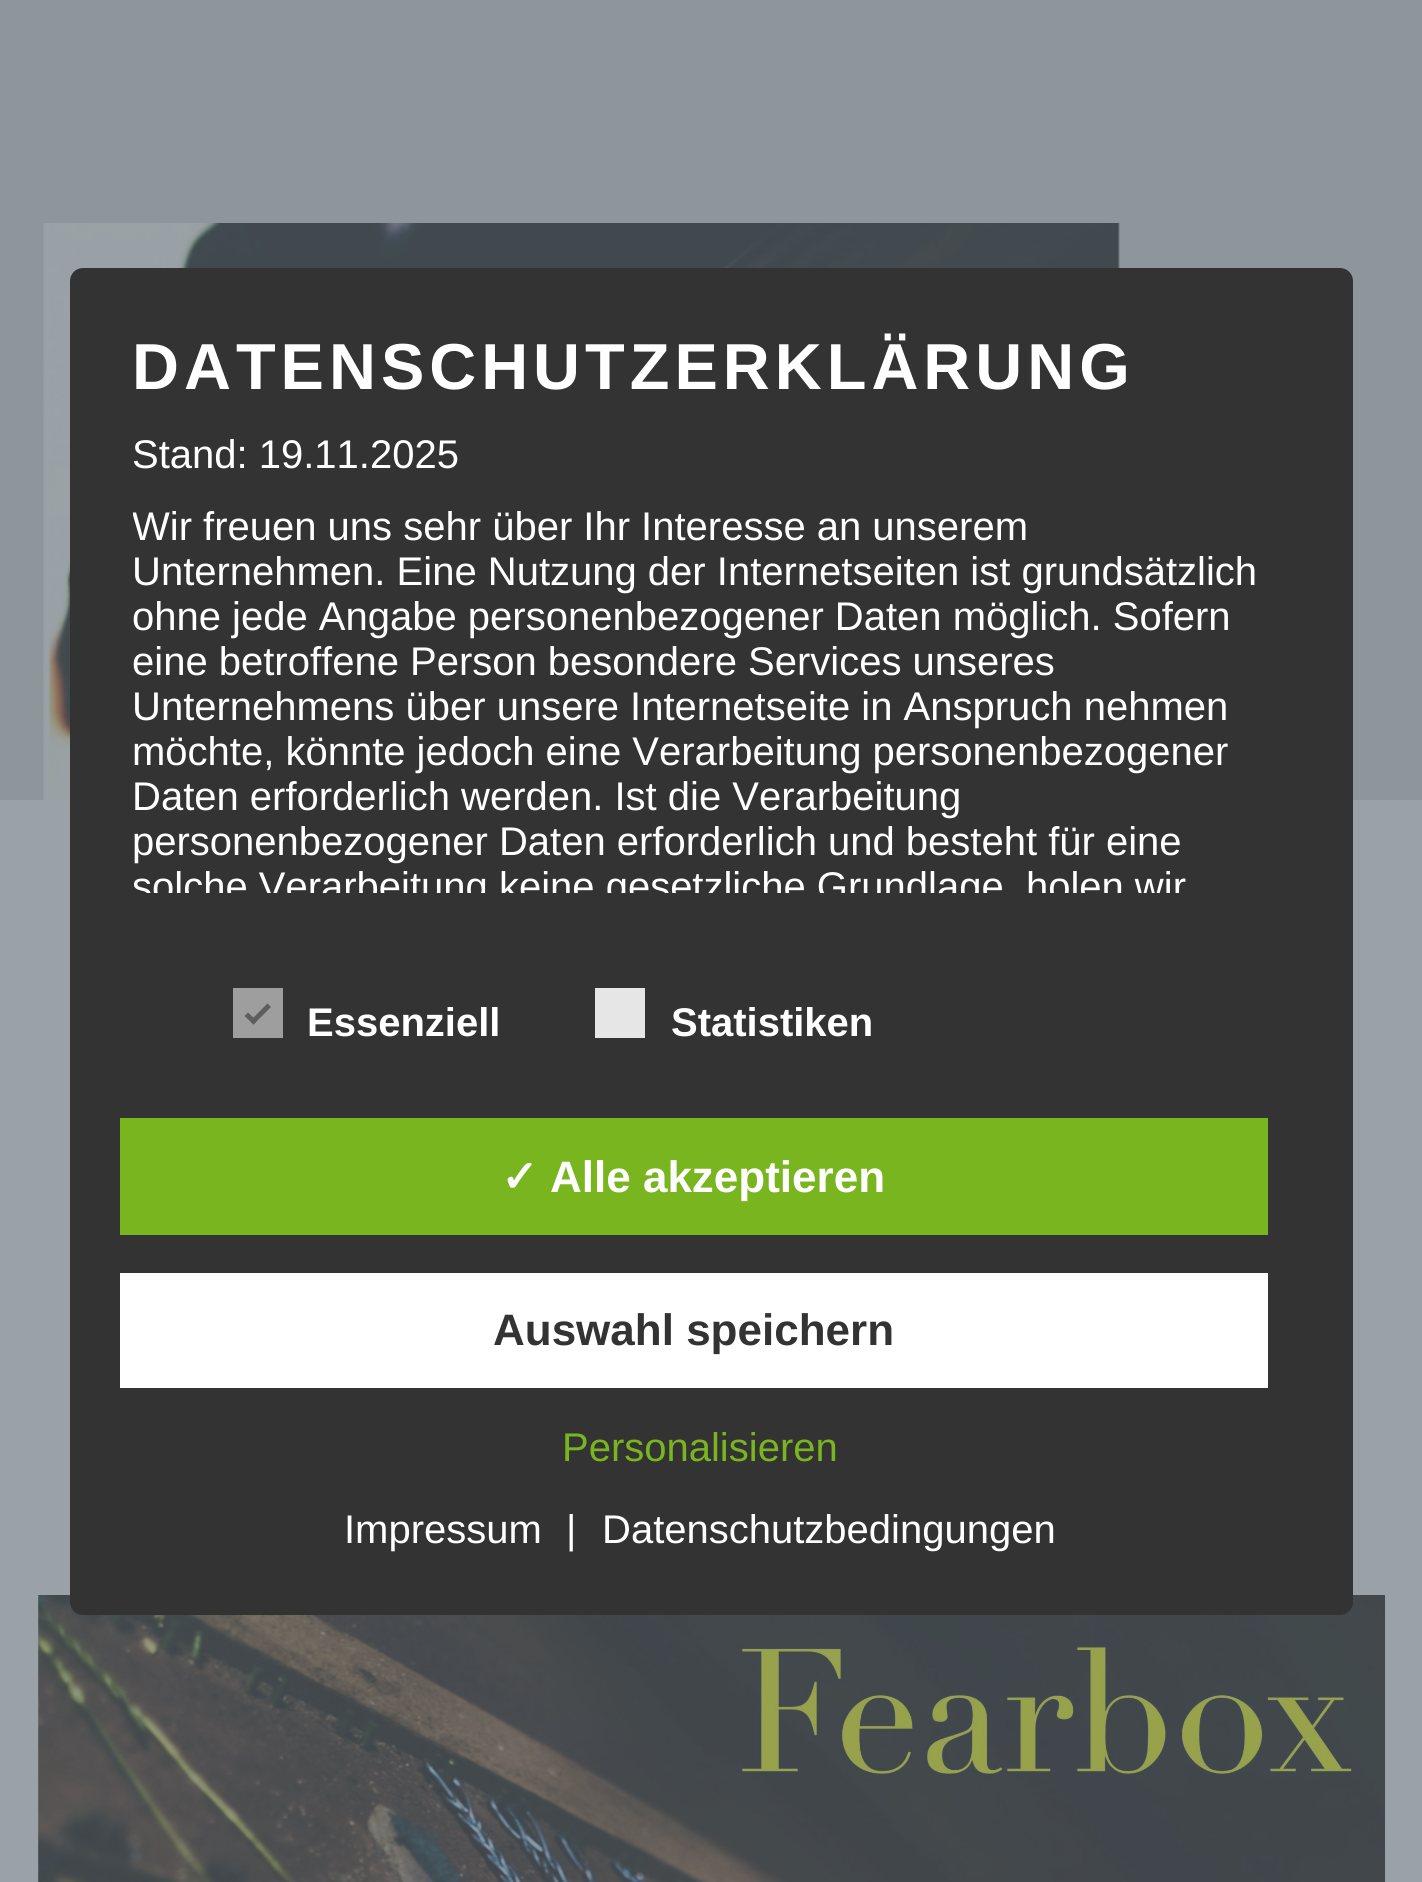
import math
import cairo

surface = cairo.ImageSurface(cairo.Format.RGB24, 1422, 1882)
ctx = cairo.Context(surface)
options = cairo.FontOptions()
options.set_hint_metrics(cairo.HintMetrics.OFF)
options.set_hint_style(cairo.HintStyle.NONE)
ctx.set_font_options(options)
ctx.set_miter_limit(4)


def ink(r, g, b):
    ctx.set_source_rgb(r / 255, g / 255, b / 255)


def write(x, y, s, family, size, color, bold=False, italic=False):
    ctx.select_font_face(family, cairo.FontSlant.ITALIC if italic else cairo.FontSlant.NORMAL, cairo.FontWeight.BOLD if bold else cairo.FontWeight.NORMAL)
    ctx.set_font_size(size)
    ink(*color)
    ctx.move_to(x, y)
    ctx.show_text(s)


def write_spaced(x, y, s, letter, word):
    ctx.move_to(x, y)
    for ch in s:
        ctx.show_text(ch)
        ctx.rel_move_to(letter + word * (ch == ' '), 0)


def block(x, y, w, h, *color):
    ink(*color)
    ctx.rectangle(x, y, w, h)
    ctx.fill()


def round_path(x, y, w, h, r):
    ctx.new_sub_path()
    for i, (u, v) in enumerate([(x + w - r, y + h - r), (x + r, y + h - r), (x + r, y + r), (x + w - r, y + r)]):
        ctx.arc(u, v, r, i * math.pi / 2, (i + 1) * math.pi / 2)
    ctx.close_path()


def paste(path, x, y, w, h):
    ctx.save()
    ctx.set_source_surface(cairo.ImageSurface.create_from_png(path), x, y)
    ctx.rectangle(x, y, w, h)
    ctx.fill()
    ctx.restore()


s1 = dict(family="Liberation Sans", size=40, color=(255, 255, 255))
s2 = dict(family="Liberation Sans", size=40, color=(255, 255, 255), bold=True)
s3 = dict(family="DejaVu Sans", size=44, color=(255, 255, 255), bold=True)
s4 = dict(family="Liberation Sans", size=44, color=(255, 255, 255), bold=True)
s5 = dict(family="Liberation Sans", size=44, color=(51, 51, 51), bold=True)
s6 = dict(family="Liberation Sans", size=40, color=(121, 181, 31))

ink(141, 150, 154)
ctx.paint()
paste("pic1.png", 43, 223, 1077, 577)
block(0, 800, 1422, 1082, 155, 162, 167)
paste("pic2.png", 38, 1595, 1347, 287)
ink(51, 51, 51)
round_path(70, 268, 1283, 1347, 13)
ctx.fill()
ctx.select_font_face("Liberation Sans", cairo.FontSlant.NORMAL, cairo.FontWeight.BOLD)
ctx.set_font_size(65)
ink(255, 255, 255)
write_spaced(132, 389, "DATENSCHUTZERKLÄRUNG", 5, 0)
write(132, 468, "Stand: 19.11.2025", **s1)
ctx.save()
ctx.rectangle(133, 330, 1182, 563)
ctx.clip()
write(132, 540, "Wir freuen uns sehr über Ihr Interesse an unserem", **s1)
ctx.restore()
write(132, 585, "Unternehmen. Eine Nutzung der Internetseiten ist grundsätzlich", **s1)
write(132, 630, "ohne jede Angabe personenbezogener Daten möglich. Sofern", **s1)
write(132, 675, "eine betroffene Person besondere Services unseres", **s1)
write(132, 720, "Unternehmens über unsere Internetseite in Anspruch nehmen", **s1)
write(132, 765, "möchte, könnte jedoch eine Verarbeitung personenbezogener", **s1)
write(132, 810, "Daten erforderlich werden. Ist die Verarbeitung", **s1)
write(132, 855, "personenbezogener Daten erforderlich und besteht für eine", **s1)
ctx.save()
ctx.rectangle(133, 330, 1182, 563)
ctx.clip()
write(132, 900, "solche Verarbeitung keine gesetzliche Grundlage, holen wir", **s1)
ctx.restore()
block(233, 988, 50, 50, 158, 158, 158)
ink(94, 94, 94)
ctx.new_path()
ctx.move_to(267.5, 1003.5)
ctx.line_to(271, 1007)
ctx.line_to(253.5, 1024.5)
ctx.line_to(250, 1021)
ctx.close_path()
ctx.fill()
ctx.new_path()
ctx.move_to(248, 1012.5)
ctx.line_to(257, 1021)
ctx.line_to(253.5, 1024.5)
ctx.line_to(244.5, 1016)
ctx.close_path()
ctx.fill()
write(307, 1036, "Essenziell", **s2)
block(595, 988, 50, 50, 230, 230, 230)
write(671, 1036, "Statistiken", **s2)
block(120, 1118, 1148, 117, 121, 181, 31)
write(501, 1192, "✓", **s3)
write(550, 1192, "Alle akzeptieren", **s4)
block(120, 1273, 1148, 115, 255, 255, 255)
write(493, 1345, "Auswahl speichern", **s5)
write(562, 1461, "Personalisieren", **s6)
write(344, 1543, "Impressum", **s1)
write(566, 1543, "|", **s1)
write(602, 1543, "Datenschutzbedingungen", **s1)
surface.write_to_png("screenshot.png")
